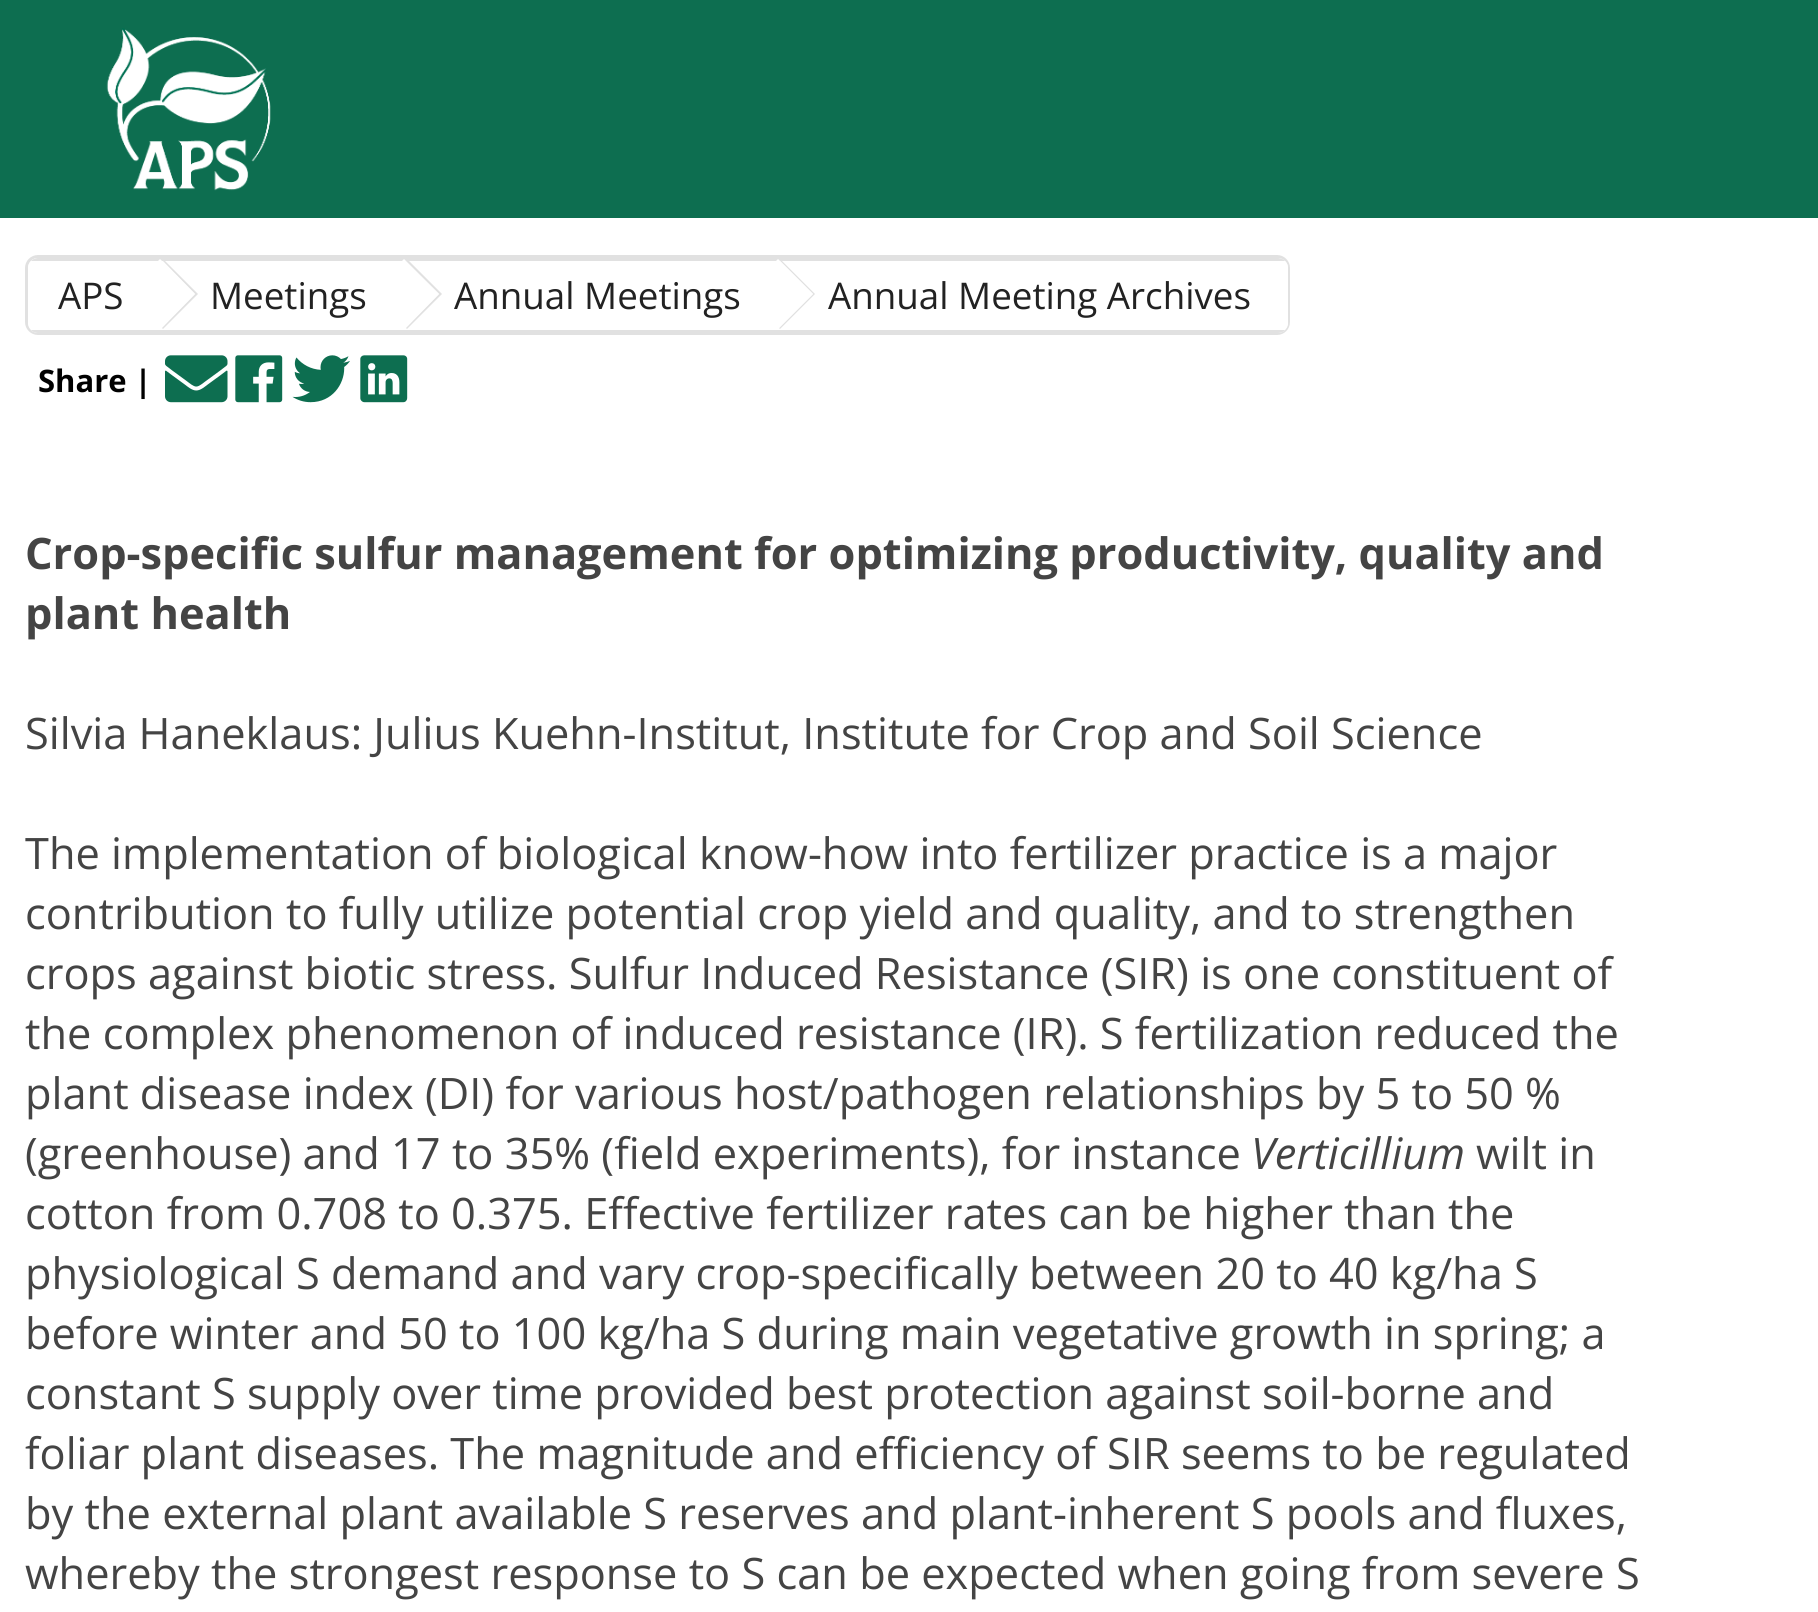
import math
import cairo

surface = cairo.ImageSurface(cairo.Format.RGB24, 1818, 1612)
ctx = cairo.Context(surface)
options = cairo.FontOptions()
options.set_hint_metrics(cairo.HintMetrics.OFF)
options.set_hint_style(cairo.HintStyle.NONE)
ctx.set_font_options(options)
ctx.set_miter_limit(4)


def ink(r, g, b):
    ctx.set_source_rgb(r / 255, g / 255, b / 255)


def write(x, y, s, family, size, color, bold=False, italic=False):
    ctx.select_font_face(family, cairo.FontSlant.ITALIC if italic else cairo.FontSlant.NORMAL, cairo.FontWeight.BOLD if bold else cairo.FontWeight.NORMAL)
    ctx.set_font_size(size)
    ink(*color)
    ctx.move_to(x, y)
    ctx.show_text(s)


def block(x, y, w, h, *color):
    ink(*color)
    ctx.rectangle(x, y, w, h)
    ctx.fill()


def round_path(x, y, w, h, r):
    ctx.new_sub_path()
    for i, (u, v) in enumerate([(x + w - r, y + h - r), (x + r, y + h - r), (x + r, y + r), (x + w - r, y + r)]):
        ctx.arc(u, v, r, i * math.pi / 2, (i + 1) * math.pi / 2)
    ctx.close_path()


def paste(path, x, y, w, h):
    ctx.save()
    ctx.set_source_surface(cairo.ImageSurface.create_from_png(path), x, y)
    ctx.rectangle(x, y, w, h)
    ctx.fill()
    ctx.restore()


s1 = dict(family="Open Sans", size=36.75, color=(34, 34, 34))
s2 = dict(family="Open Sans", size=31, color=(0, 0, 0), bold=True)
s3 = dict(family="Open Sans", size=43.35, color=(68, 68, 68), bold=True)
s4 = dict(family="Open Sans", size=43.35, color=(68, 68, 68))
s5 = dict(family="Open Sans", size=43.35, color=(68, 68, 68), italic=True)

ink(255, 255, 255)
ctx.paint()
block(0, 0, 1818, 218, 13, 110, 80)
paste("pic1.png", 106, 28, 165, 163)
round_path(26.5, 256.5, 1262, 77, 11.5)
ink(225, 225, 225)
ctx.set_line_width(3)
ctx.stroke()
ink(255, 255, 255)
ctx.new_path()
ctx.move_to(38, 258)
ctx.line_to(160, 258)
ctx.line_to(160, 333)
ctx.line_to(38, 333)
ctx.curve_to(32.5, 333, 28, 328.5, 28, 323)
ctx.line_to(28, 268)
ctx.curve_to(28, 262.5, 32.5, 258, 38, 258)
ctx.close_path()
ctx.fill()
ctx.save()
round_path(28, 258, 1260, 75, 10)
ctx.clip()
block(28, 258, 132, 3, 225, 225, 225)
block(28, 330, 132, 3, 225, 225, 225)
ctx.restore()
write(58, 309, "APS", **s1)
block(160, 258, 618, 3, 225, 225, 225)
ctx.new_path()
ctx.move_to(163, 259)
ctx.line_to(198, 294)
ctx.line_to(163, 329)
ctx.line_to(162, 328)
ctx.line_to(195, 294)
ctx.line_to(162, 260)
ctx.close_path()
ctx.fill()
ink(255, 255, 255)
ctx.new_path()
ctx.move_to(160, 259)
ctx.line_to(195, 294)
ctx.line_to(160, 329)
ctx.line_to(125, 294)
ctx.close_path()
ctx.fill()
block(160, 330, 618, 2, 225, 225, 225)
write(210, 309, "Meetings", **s1)
ink(225, 225, 225)
ctx.new_path()
ctx.move_to(407, 259)
ctx.line_to(442, 294)
ctx.line_to(407, 329)
ctx.line_to(406, 328)
ctx.line_to(439, 294)
ctx.line_to(405, 261)
ctx.close_path()
ctx.fill()
ink(255, 255, 255)
ctx.new_path()
ctx.move_to(404, 259)
ctx.line_to(439, 294)
ctx.line_to(404, 329)
ctx.line_to(369, 294)
ctx.close_path()
ctx.fill()
write(454, 309, "Annual Meetings", **s1)
ink(255, 255, 255)
ctx.new_path()
ctx.move_to(778, 258)
ctx.line_to(1278, 258)
ctx.curve_to(1283.5, 258, 1288, 262.5, 1288, 268)
ctx.line_to(1288, 323)
ctx.curve_to(1288, 328.5, 1283.5, 333, 1278, 333)
ctx.line_to(778, 333)
ctx.close_path()
ctx.fill()
ctx.save()
round_path(28, 258, 1260, 75, 10)
ctx.clip()
block(778, 258, 510, 3, 225, 225, 225)
ctx.restore()
ink(225, 225, 225)
ctx.new_path()
ctx.move_to(780, 259)
ctx.line_to(815, 294)
ctx.line_to(780, 329)
ctx.line_to(779, 328)
ctx.line_to(813, 294)
ctx.line_to(779, 260)
ctx.close_path()
ctx.fill()
ink(255, 255, 255)
ctx.new_path()
ctx.move_to(778, 259)
ctx.line_to(813, 294)
ctx.line_to(778, 329)
ctx.line_to(743, 294)
ctx.close_path()
ctx.fill()
ctx.save()
round_path(28, 258, 1260, 75, 10)
ctx.clip()
block(778, 330, 510, 3, 225, 225, 225)
ctx.restore()
write(828, 309, "Annual Meeting Archives", **s1)
ink(255, 255, 255)
ctx.new_path()
ctx.move_to(1285, 261)
ctx.curve_to(1287, 263, 1288, 265, 1288, 268)
ctx.line_to(1288, 323)
ctx.curve_to(1288, 325, 1287, 327, 1286, 328)
ctx.line_to(1252, 294)
ctx.close_path()
ctx.fill()
write(38, 392, "Share |", **s2)
paste("pic2.png", 165, 355, 63, 48)
paste("pic3.png", 235, 355, 48, 48)
paste("pic4.png", 292, 355, 58, 48)
paste("pic5.png", 360, 355, 48, 48)
write(25, 569, "Crop-specific sulfur management for optimizing productivity, quality and", **s3)
write(25, 629, "plant health", **s3)
write(25, 749, "Silvia Haneklaus: Julius Kuehn-Institut, Institute for Crop and Soil Science", **s4)
write(25, 869, "The implementation of biological know-how into fertilizer practice is a major", **s4)
write(25, 929, "contribution to fully utilize potential crop yield and quality, and to strengthen", **s4)
write(25, 989, "crops against biotic stress. Sulfur Induced Resistance (SIR) is one constituent of", **s4)
write(25, 1049, "the complex phenomenon of induced resistance (IR). S fertilization reduced the", **s4)
write(25, 1109, "plant disease index (DI) for various host/pathogen relationships by 5 to 50 %", **s4)
write(25, 1169, "(greenhouse) and 17 to 35% (field experiments), for instance", **s4)
write(1251, 1169, "Verticillium", **s5)
write(1476, 1169, "wilt in", **s4)
write(25, 1229, "cotton from 0.708 to 0.375. Effective fertilizer rates can be higher than the", **s4)
write(25, 1289, "physiological S demand and vary crop-specifically between 20 to 40 kg/ha S", **s4)
write(25, 1349, "before winter and 50 to 100 kg/ha S during main vegetative growth in spring; a", **s4)
write(25, 1409, "constant S supply over time provided best protection against soil-borne and", **s4)
write(25, 1469, "foliar plant diseases. The magnitude and efficiency of SIR seems to be regulated", **s4)
write(25, 1529, "by the external plant available S reserves and plant-inherent S pools and fluxes,", **s4)
write(25, 1589, "whereby the strongest response to S can be expected when going from severe S", **s4)
surface.write_to_png("screenshot.png")
